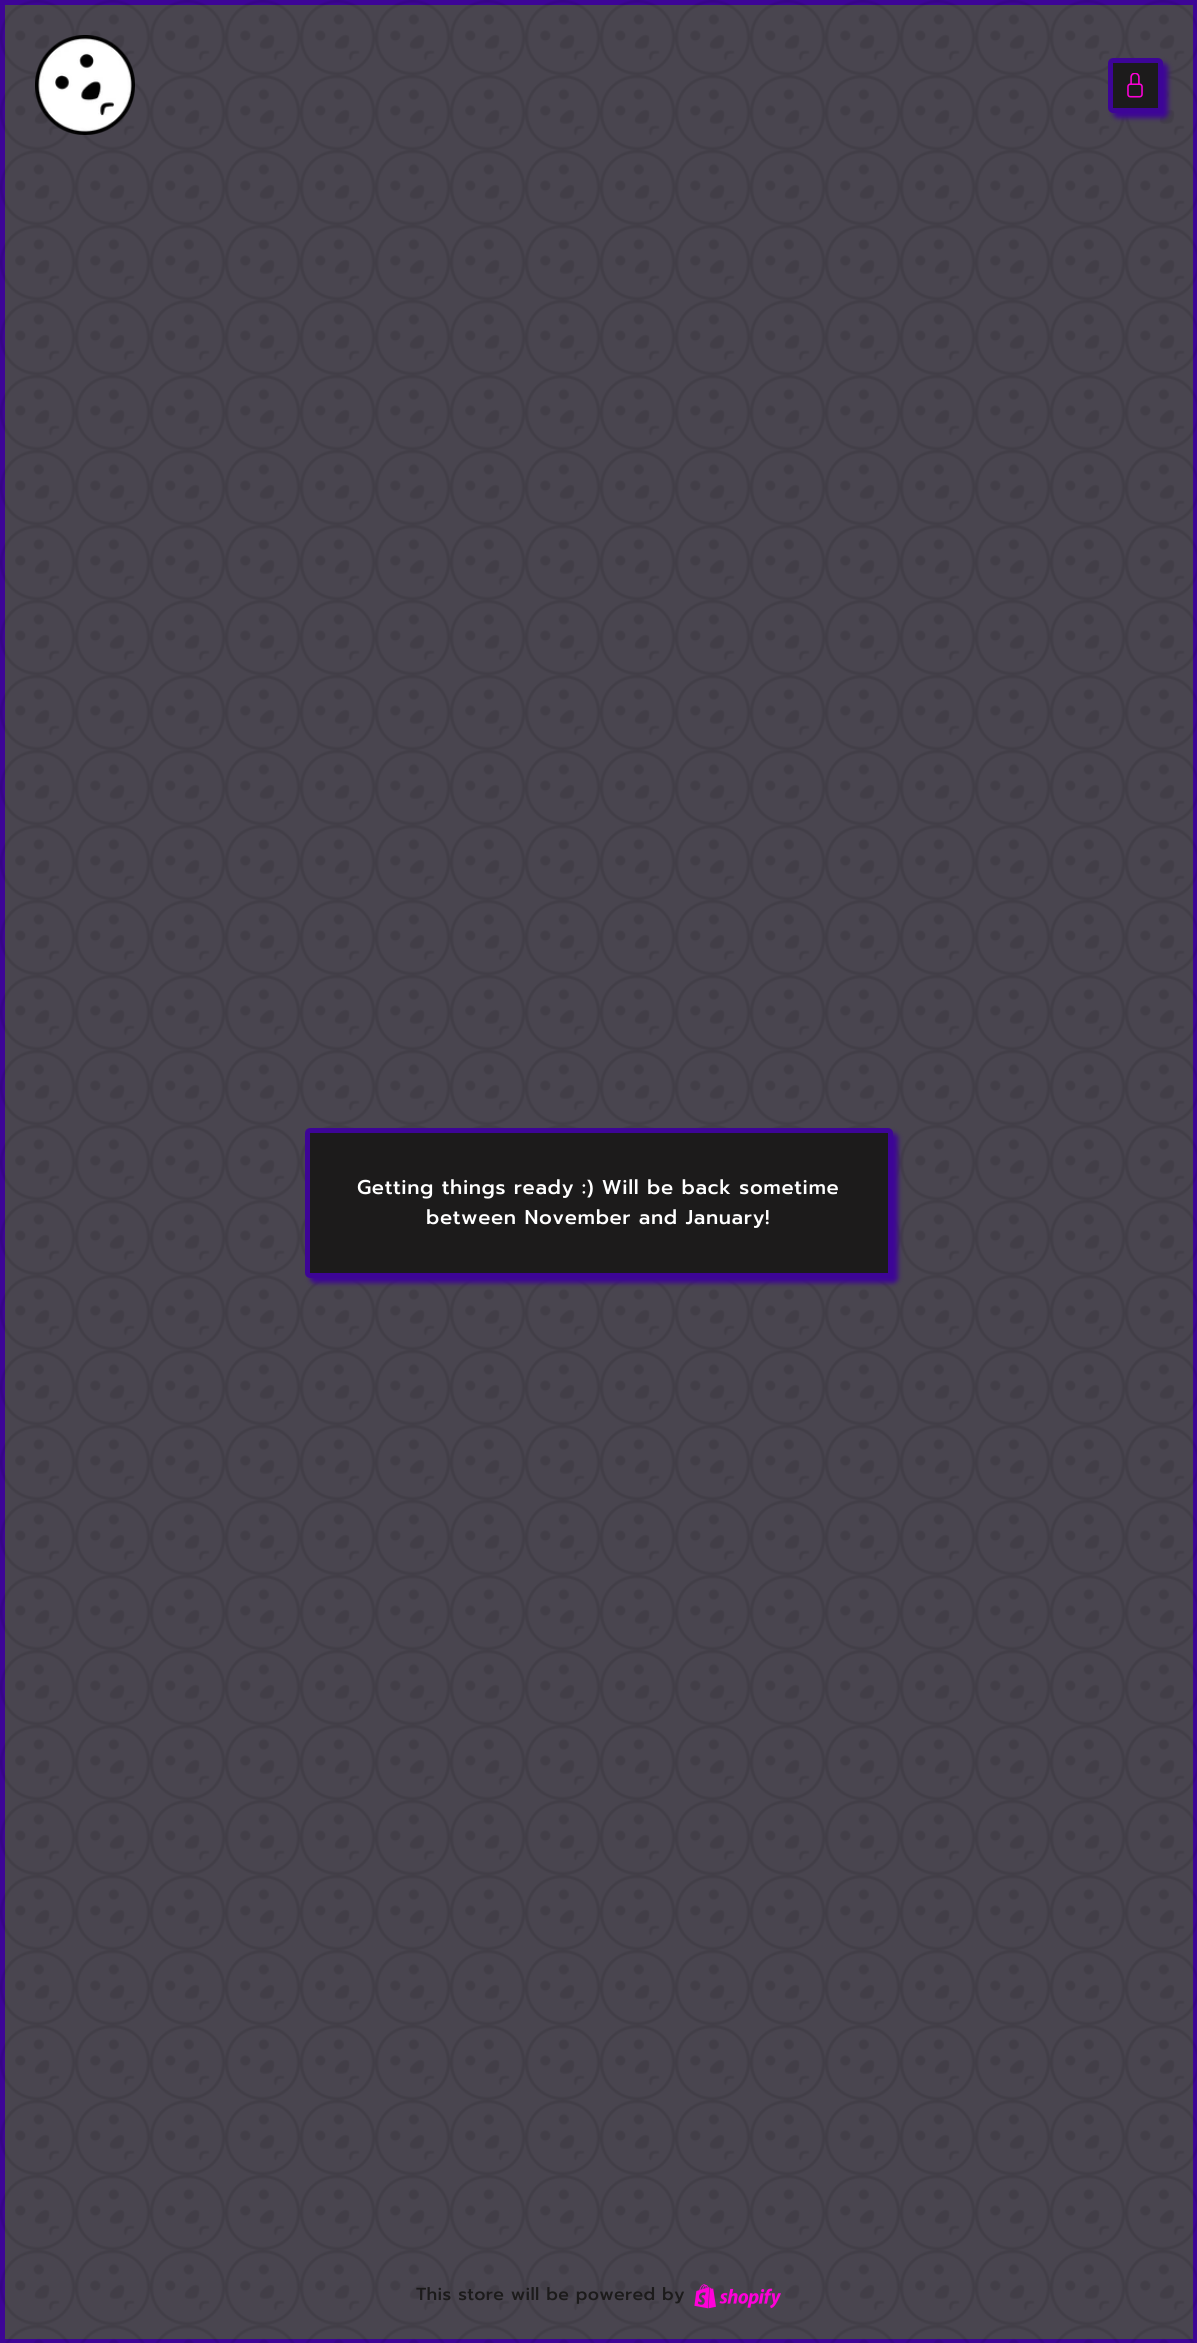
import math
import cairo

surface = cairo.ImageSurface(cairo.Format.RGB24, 1197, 2343)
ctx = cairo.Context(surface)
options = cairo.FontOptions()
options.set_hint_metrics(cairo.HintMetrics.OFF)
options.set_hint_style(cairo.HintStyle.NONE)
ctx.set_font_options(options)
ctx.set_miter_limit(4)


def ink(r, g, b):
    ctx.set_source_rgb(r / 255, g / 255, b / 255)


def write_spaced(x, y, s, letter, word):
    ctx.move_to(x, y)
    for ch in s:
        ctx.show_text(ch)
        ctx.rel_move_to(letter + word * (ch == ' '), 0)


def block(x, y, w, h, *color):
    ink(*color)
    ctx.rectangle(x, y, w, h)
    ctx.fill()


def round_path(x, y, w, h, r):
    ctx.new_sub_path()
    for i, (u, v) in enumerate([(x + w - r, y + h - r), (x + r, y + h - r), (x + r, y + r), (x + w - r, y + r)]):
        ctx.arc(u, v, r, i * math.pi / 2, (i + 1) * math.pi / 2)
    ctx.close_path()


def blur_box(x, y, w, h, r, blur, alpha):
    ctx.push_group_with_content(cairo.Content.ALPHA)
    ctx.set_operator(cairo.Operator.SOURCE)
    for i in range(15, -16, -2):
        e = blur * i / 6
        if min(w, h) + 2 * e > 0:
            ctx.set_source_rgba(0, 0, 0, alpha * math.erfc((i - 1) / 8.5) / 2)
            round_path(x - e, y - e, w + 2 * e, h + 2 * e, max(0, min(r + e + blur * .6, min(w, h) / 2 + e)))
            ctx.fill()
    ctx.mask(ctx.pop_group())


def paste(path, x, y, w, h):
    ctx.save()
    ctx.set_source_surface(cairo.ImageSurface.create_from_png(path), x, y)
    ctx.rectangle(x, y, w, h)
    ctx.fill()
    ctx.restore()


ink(255, 255, 255)
ctx.paint()
ctx.rectangle(2.5, 2.5, 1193, 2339)
ink(61, 5, 150)
ctx.set_line_width(5)
ctx.stroke()
block(5, 5, 1188, 2334, 73, 69, 79)
paste("pic1.png", 0, 0, 1197, 2343)
paste("pic2.png", 35, 35, 100, 100)
ink(61, 5, 150)
blur_box(1113, 63, 55, 55, 5, 2.5, 1)
ink(28, 27, 27)
round_path(1110.5, 60.5, 50, 50, 2.5)
ctx.fill_preserve()
ink(61, 5, 150)
ctx.stroke()
paste("pic3.png", 1127, 73, 16, 25)
ink(61, 5, 150)
blur_box(310, 1133, 588, 150, 5, 2.5, 1)
ink(28, 27, 27)
round_path(307.5, 1130.5, 583, 145, 2.5)
ctx.fill_preserve()
ink(61, 5, 150)
ctx.stroke()
ctx.select_font_face("Prompt Medium")
ctx.set_font_size(20)
ink(255, 255, 255)
write_spaced(357, 1194, "Getting things ready :) Will be back sometime", 0.6, 0)
write_spaced(426, 1224, "between November and January!", 0.6, 0)
ctx.set_font_size(17.5)
ink(28, 27, 27)
write_spaced(416, 2300, "This store will be powered by", 0.3, 0)
paste("pic4.png", 694, 2284, 87, 25)
surface.write_to_png("screenshot.png")
